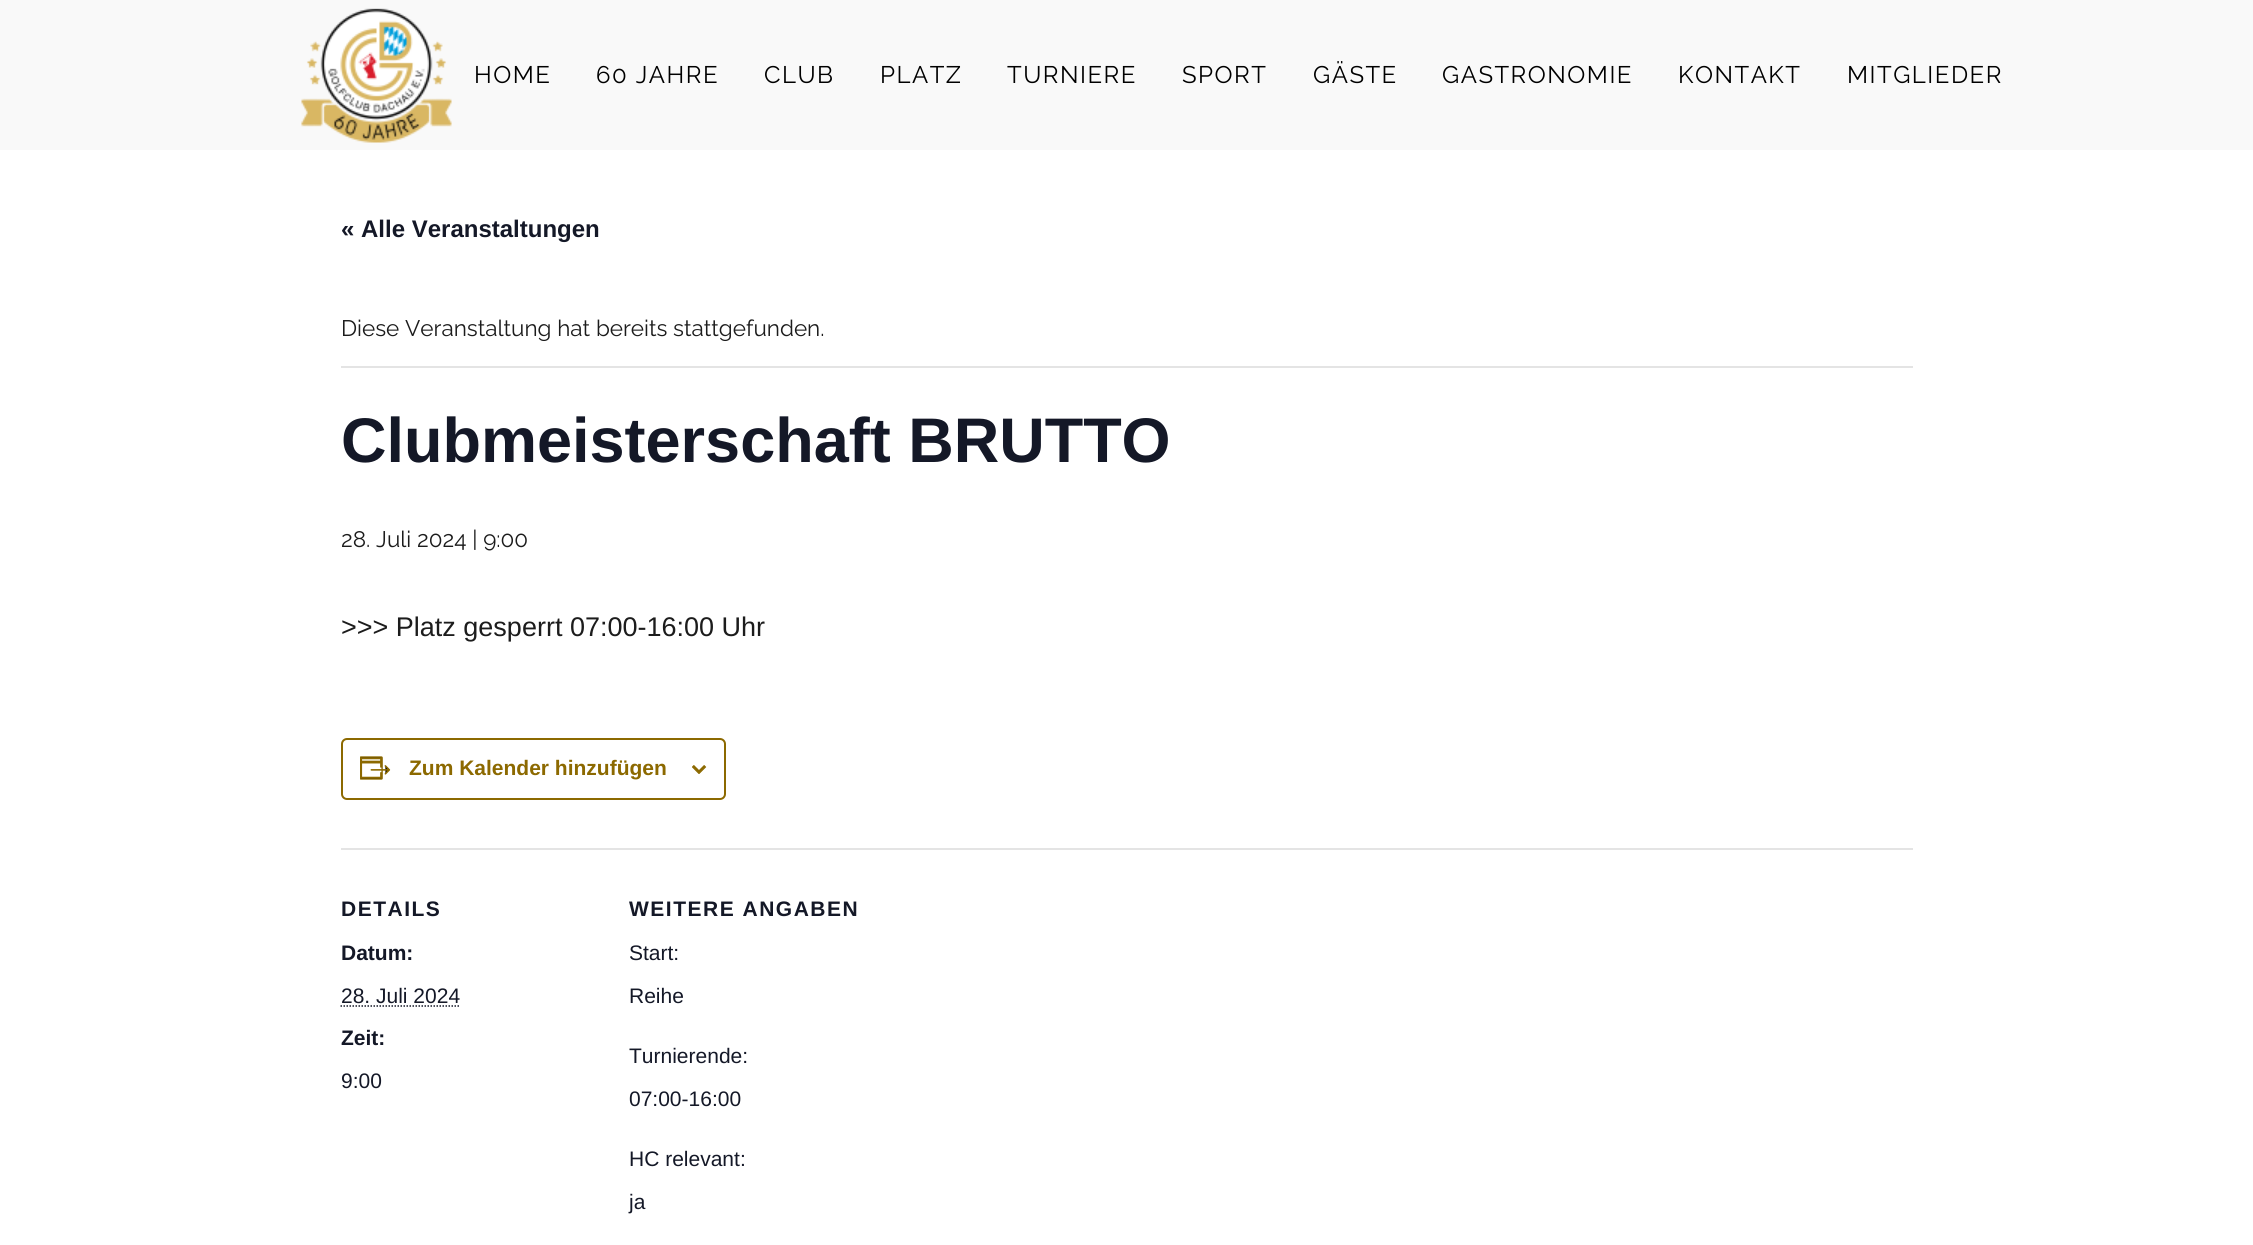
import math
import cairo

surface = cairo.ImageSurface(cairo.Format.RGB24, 2253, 1245)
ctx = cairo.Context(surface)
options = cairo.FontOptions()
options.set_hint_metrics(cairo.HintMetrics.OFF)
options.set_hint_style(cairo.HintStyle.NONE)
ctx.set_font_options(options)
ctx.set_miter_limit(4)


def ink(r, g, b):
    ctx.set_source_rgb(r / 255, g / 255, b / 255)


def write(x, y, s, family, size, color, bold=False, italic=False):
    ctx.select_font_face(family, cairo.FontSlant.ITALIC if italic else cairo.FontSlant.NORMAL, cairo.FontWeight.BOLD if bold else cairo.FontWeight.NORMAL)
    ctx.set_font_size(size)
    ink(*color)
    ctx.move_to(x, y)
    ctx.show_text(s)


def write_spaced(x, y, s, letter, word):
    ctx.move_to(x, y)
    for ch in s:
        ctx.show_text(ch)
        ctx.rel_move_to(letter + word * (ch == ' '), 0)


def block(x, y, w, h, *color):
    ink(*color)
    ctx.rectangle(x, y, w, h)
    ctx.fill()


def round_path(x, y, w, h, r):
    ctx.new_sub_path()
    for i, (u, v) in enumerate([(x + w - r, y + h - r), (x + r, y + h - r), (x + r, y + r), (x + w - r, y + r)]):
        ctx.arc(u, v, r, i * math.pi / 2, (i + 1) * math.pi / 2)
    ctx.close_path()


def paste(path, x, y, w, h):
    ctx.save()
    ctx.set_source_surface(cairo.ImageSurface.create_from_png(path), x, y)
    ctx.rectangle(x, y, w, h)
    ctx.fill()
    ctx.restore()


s1 = dict(family="Liberation Sans", size=24, color=(20, 24, 39), bold=True)
s2 = dict(family="Raleway", size=22.5, color=(28, 28, 28))
s3 = dict(family="Liberation Sans", size=63, color=(20, 24, 39), bold=True)
s4 = dict(family="Liberation Sans", size=27, color=(28, 28, 28))
s5 = dict(family="Liberation Sans", size=21, color=(140, 105, 0), bold=True)
s6 = dict(family="Liberation Sans", size=21, color=(20, 24, 39), bold=True)
s7 = dict(family="Liberation Sans", size=21, color=(20, 24, 39))

ink(255, 255, 255)
ctx.paint()
block(0, 0, 2253, 150, 249, 249, 249)
paste("pic1.png", 301, 8, 151, 135)
ctx.select_font_face("Raleway")
ctx.set_font_size(24)
ink(0, 0, 0)
write_spaced(474, 83, "HOME", 1.5, 0)
write_spaced(596, 83, "60 JAHRE", 1.5, 0)
write_spaced(764, 83, "CLUB", 1.5, 0)
write_spaced(880, 83, "PLATZ", 1.5, 0)
write_spaced(1007, 83, "TURNIERE", 1.5, 0)
write_spaced(1182, 83, "SPORT", 1.5, 0)
write_spaced(1313, 83, "GÄSTE", 1.5, 0)
write_spaced(1442, 83, "GASTRONOMIE", 1.5, 0)
write_spaced(1678, 83, "KONTAKT", 1.5, 0)
write_spaced(1847, 83, "MITGLIEDER", 1.5, 0)
write(341, 237, "« Alle Veranstaltungen", **s1)
block(341, 366, 1572, 2, 228, 228, 228)
write(341, 336, "Diese Veranstaltung hat bereits stattgefunden.", **s2)
write(341, 462, "Clubmeisterschaft BRUTTO", **s3)
write(341, 547, "28. Juli 2024 | 9:00", **s2)
write(341, 636, ">>> Platz gesperrt 07:00-16:00 Uhr", **s4)
round_path(342, 739, 383, 60, 5)
ink(140, 105, 0)
ctx.stroke()
paste("pic2.png", 360, 756, 31, 24)
write(409, 775, "Zum Kalender hinzufügen", **s5)
paste("pic3.png", 692, 765, 15, 9)
block(341, 848, 1572, 2, 228, 228, 228)
ink(20, 24, 39)
write_spaced(341, 916, "DETAILS", 1.5, 0)
write(341, 960, "Datum:", **s6)
write(341, 1003, "28. Juli 2024", **s7)
ctx.new_path()
ctx.move_to(340.5, 1006)
ctx.line_to(459.5, 1006)
ctx.set_line_width(1.5)
ctx.set_dash([1.5, 1.5])
ctx.stroke()
write(341, 1045, "Zeit:", **s6)
write(341, 1088, "9:00", **s7)
ctx.select_font_face("Liberation Sans", cairo.FontSlant.NORMAL, cairo.FontWeight.BOLD)
write_spaced(629, 916, "WEITERE ANGABEN", 1.5, 0)
write(629, 960, "Start:", **s7)
write(629, 1003, "Reihe", **s7)
write(629, 1063, "Turnierende:", **s7)
write(629, 1106, "07:00-16:00", **s7)
write(629, 1166, "HC relevant:", **s7)
write(629, 1209, "ja", **s7)
surface.write_to_png("screenshot.png")
